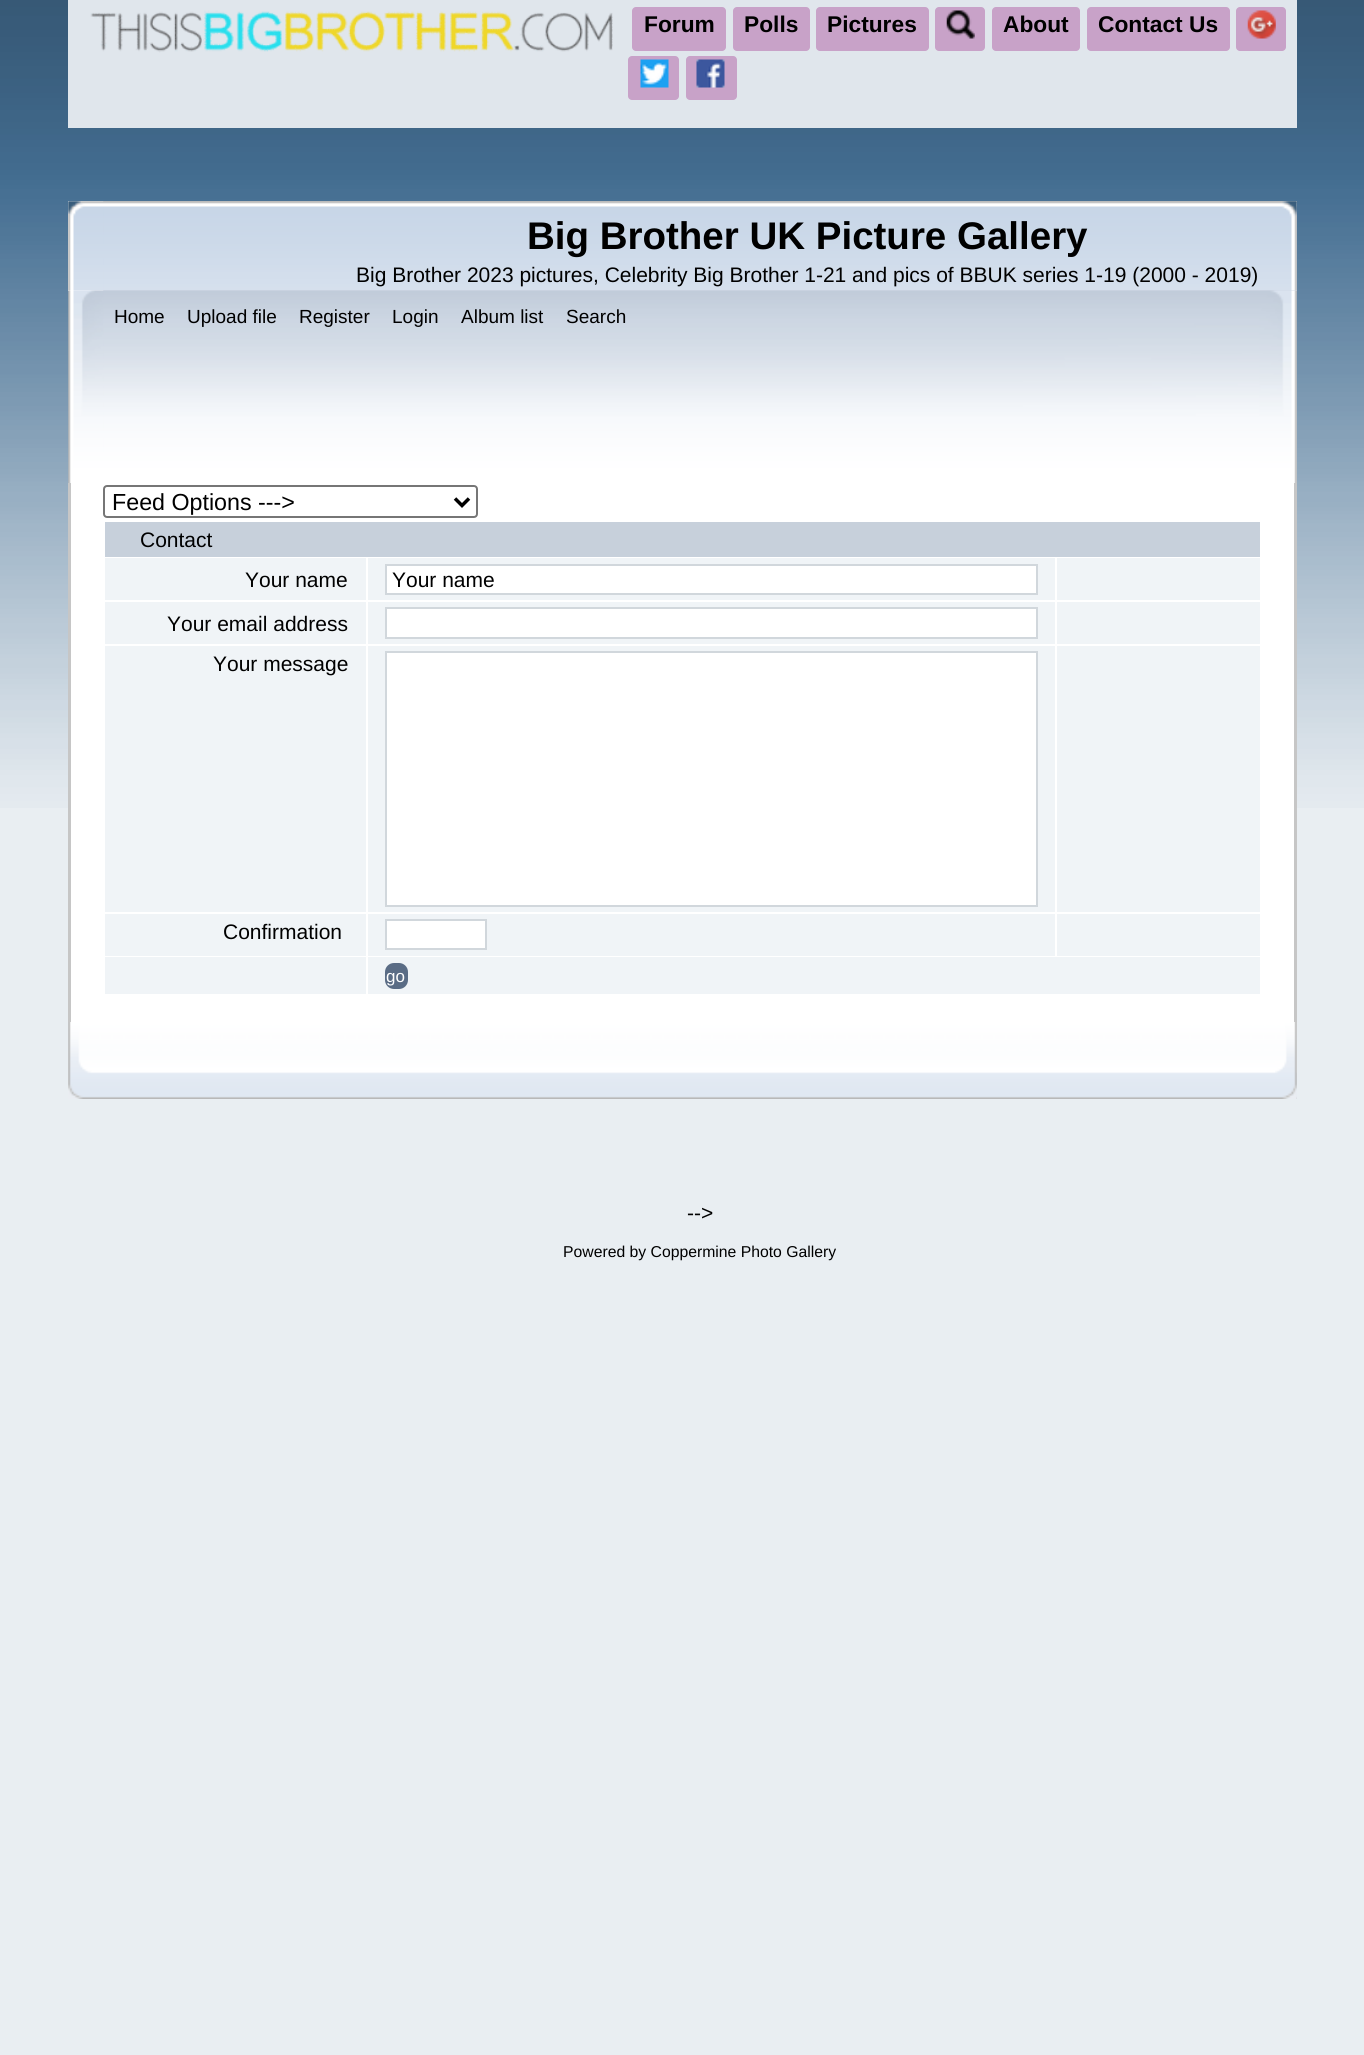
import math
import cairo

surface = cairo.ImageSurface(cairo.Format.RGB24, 1364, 2055)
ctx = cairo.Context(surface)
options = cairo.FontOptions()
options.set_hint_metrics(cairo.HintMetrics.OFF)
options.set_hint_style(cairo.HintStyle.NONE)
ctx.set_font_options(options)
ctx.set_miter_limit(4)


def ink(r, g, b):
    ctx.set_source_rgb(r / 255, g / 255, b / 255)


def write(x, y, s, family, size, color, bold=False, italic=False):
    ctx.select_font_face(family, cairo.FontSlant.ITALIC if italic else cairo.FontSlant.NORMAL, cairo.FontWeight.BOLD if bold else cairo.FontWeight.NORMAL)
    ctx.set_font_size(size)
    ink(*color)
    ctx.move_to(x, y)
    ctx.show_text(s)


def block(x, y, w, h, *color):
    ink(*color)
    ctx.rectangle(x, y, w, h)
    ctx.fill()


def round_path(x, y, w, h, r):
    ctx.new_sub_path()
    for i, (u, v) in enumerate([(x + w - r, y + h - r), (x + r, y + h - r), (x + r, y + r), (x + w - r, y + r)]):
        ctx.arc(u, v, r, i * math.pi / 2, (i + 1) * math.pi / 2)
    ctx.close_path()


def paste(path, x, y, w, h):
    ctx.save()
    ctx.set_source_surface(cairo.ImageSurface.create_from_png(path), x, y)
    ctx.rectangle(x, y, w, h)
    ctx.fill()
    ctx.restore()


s1 = dict(family="Liberation Sans", size=22.75, color=(0, 0, 0), bold=True)
s2 = dict(family="Liberation Sans", size=38.5, color=(0, 0, 0), bold=True)
s3 = dict(family="Liberation Sans", size=21, color=(0, 0, 0))
s4 = dict(family="Liberation Sans", size=19, color=(0, 0, 0))
s5 = dict(family="Liberation Sans", size=23.25, color=(0, 0, 0))
s6 = dict(family="Liberation Sans", size=17, color=(255, 255, 255))
s7 = dict(family="Liberation Sans", size=15.75, color=(0, 0, 0))

ink(233, 238, 242)
ctx.paint()
paste("pic1.png", 0, 0, 1364, 808)
block(68, 0, 1229, 128, 224, 230, 236)
paste("pic2.png", 90, 10, 523, 43)
ink(200, 162, 200)
round_path(632, 7, 94, 44, 4)
ctx.fill()
write(644, 32, "Forum", **s1)
ink(200, 162, 200)
round_path(733, 7, 77, 44, 4)
ctx.fill()
write(744, 32, "Polls", **s1)
ink(200, 162, 200)
round_path(816, 7, 113, 44, 4)
ctx.fill()
write(827, 32, "Pictures", **s1)
ink(200, 162, 200)
round_path(935, 7, 50, 44, 4)
ctx.fill()
paste("pic3.png", 946, 10, 29, 29)
round_path(992, 7, 88, 44, 4)
ctx.fill()
write(1003, 32, "About", **s1)
ink(200, 162, 200)
round_path(1087, 7, 143, 44, 4)
ctx.fill()
write(1098, 32, "Contact Us", **s1)
ink(200, 162, 200)
round_path(1236, 7, 50, 44, 4)
ctx.fill()
paste("pic4.png", 1247, 10, 29, 29)
round_path(628, 56, 51, 44, 4)
ctx.fill()
paste("pic5.png", 640, 59, 29, 29)
round_path(686, 56, 51, 44, 4)
ctx.fill()
paste("pic6.png", 696, 59, 29, 29)
block(68, 201, 1229, 90, 254, 254, 254)
paste("pic7.png", 68, 201, 1229, 90)
paste("pic8.png", 103, 201, 1194, 90)
write(527, 249, "Big Brother UK Picture Gallery", **s2)
write(356, 282, "Big Brother 2023 pictures, Celebrity Big Brother 1-21 and pics of BBUK series 1-19 (2000 - 2019)", **s3)
paste("pic9.png", 68, 290, 1229, 193)
paste("pic10.png", 103, 290, 1194, 193)
write(114, 323, "Home", **s4)
write(187, 323, "Upload file", **s4)
write(299, 323, "Register", **s4)
write(392, 323, "Login", **s4)
write(461, 323, "Album list", **s4)
write(566, 323, "Search", **s4)
block(71, 483, 1223, 539, 255, 255, 255)
block(68, 483, 3, 539, 198, 198, 198)
block(1294, 483, 3, 539, 198, 198, 198)
round_path(104, 486, 373, 31, 3)
ink(118, 118, 118)
ctx.stroke()
ctx.new_path()
ctx.move_to(455, 498.5)
ctx.line_to(462, 505.5)
ctx.line_to(469, 498.5)
ink(0, 0, 0)
ctx.set_line_width(3.5)
ctx.stroke()
write(112, 510, "Feed Options --->", **s5)
block(105, 522, 1155, 35, 199, 208, 219)
write(140, 547, "Contact", **s3)
block(105, 558, 261, 42, 240, 244, 247)
write(245, 587, "Your name", **s3)
block(368, 558, 687, 42, 240, 244, 247)
ink(255, 255, 255)
ctx.rectangle(386, 565, 651, 29)
ctx.fill_preserve()
ink(209, 215, 220)
ctx.set_line_width(2)
ctx.stroke()
write(392, 587, "Your name", **s3)
block(1057, 558, 203, 42, 240, 244, 247)
block(105, 602, 261, 42, 240, 244, 247)
write(167, 631, "Your email address", **s3)
block(368, 602, 687, 42, 240, 244, 247)
ink(255, 255, 255)
ctx.rectangle(386, 608, 651, 30)
ctx.fill_preserve()
ink(209, 215, 220)
ctx.stroke()
block(1057, 602, 203, 42, 240, 244, 247)
block(105, 646, 261, 266, 240, 244, 247)
write(213, 671, "Your message", **s3)
block(368, 646, 687, 266, 240, 244, 247)
ink(255, 255, 255)
ctx.rectangle(386, 652, 651, 254)
ctx.fill_preserve()
ink(209, 215, 220)
ctx.stroke()
block(1057, 646, 203, 266, 240, 244, 247)
block(105, 914, 261, 42, 240, 244, 247)
write(223, 939, "Confirmation", **s3)
block(368, 914, 687, 42, 240, 244, 247)
ink(255, 255, 255)
ctx.rectangle(386, 920, 100, 29)
ctx.fill_preserve()
ink(209, 215, 220)
ctx.stroke()
block(1057, 914, 203, 42, 240, 244, 247)
block(105, 957, 261, 37, 240, 244, 247)
block(368, 957, 892, 37, 240, 244, 247)
ink(90, 108, 133)
round_path(386, 964, 21, 24, 8)
ctx.fill_preserve()
ctx.stroke()
write(386, 982, "go", **s6)
paste("pic11.png", 68, 1022, 1229, 77)
paste("pic12.png", 1275, 1022, 22, 77)
write(687, 1220, "-->", **s3)
write(563, 1257, "Powered by Coppermine Photo Gallery", **s7)
surface.write_to_png("screenshot.png")
